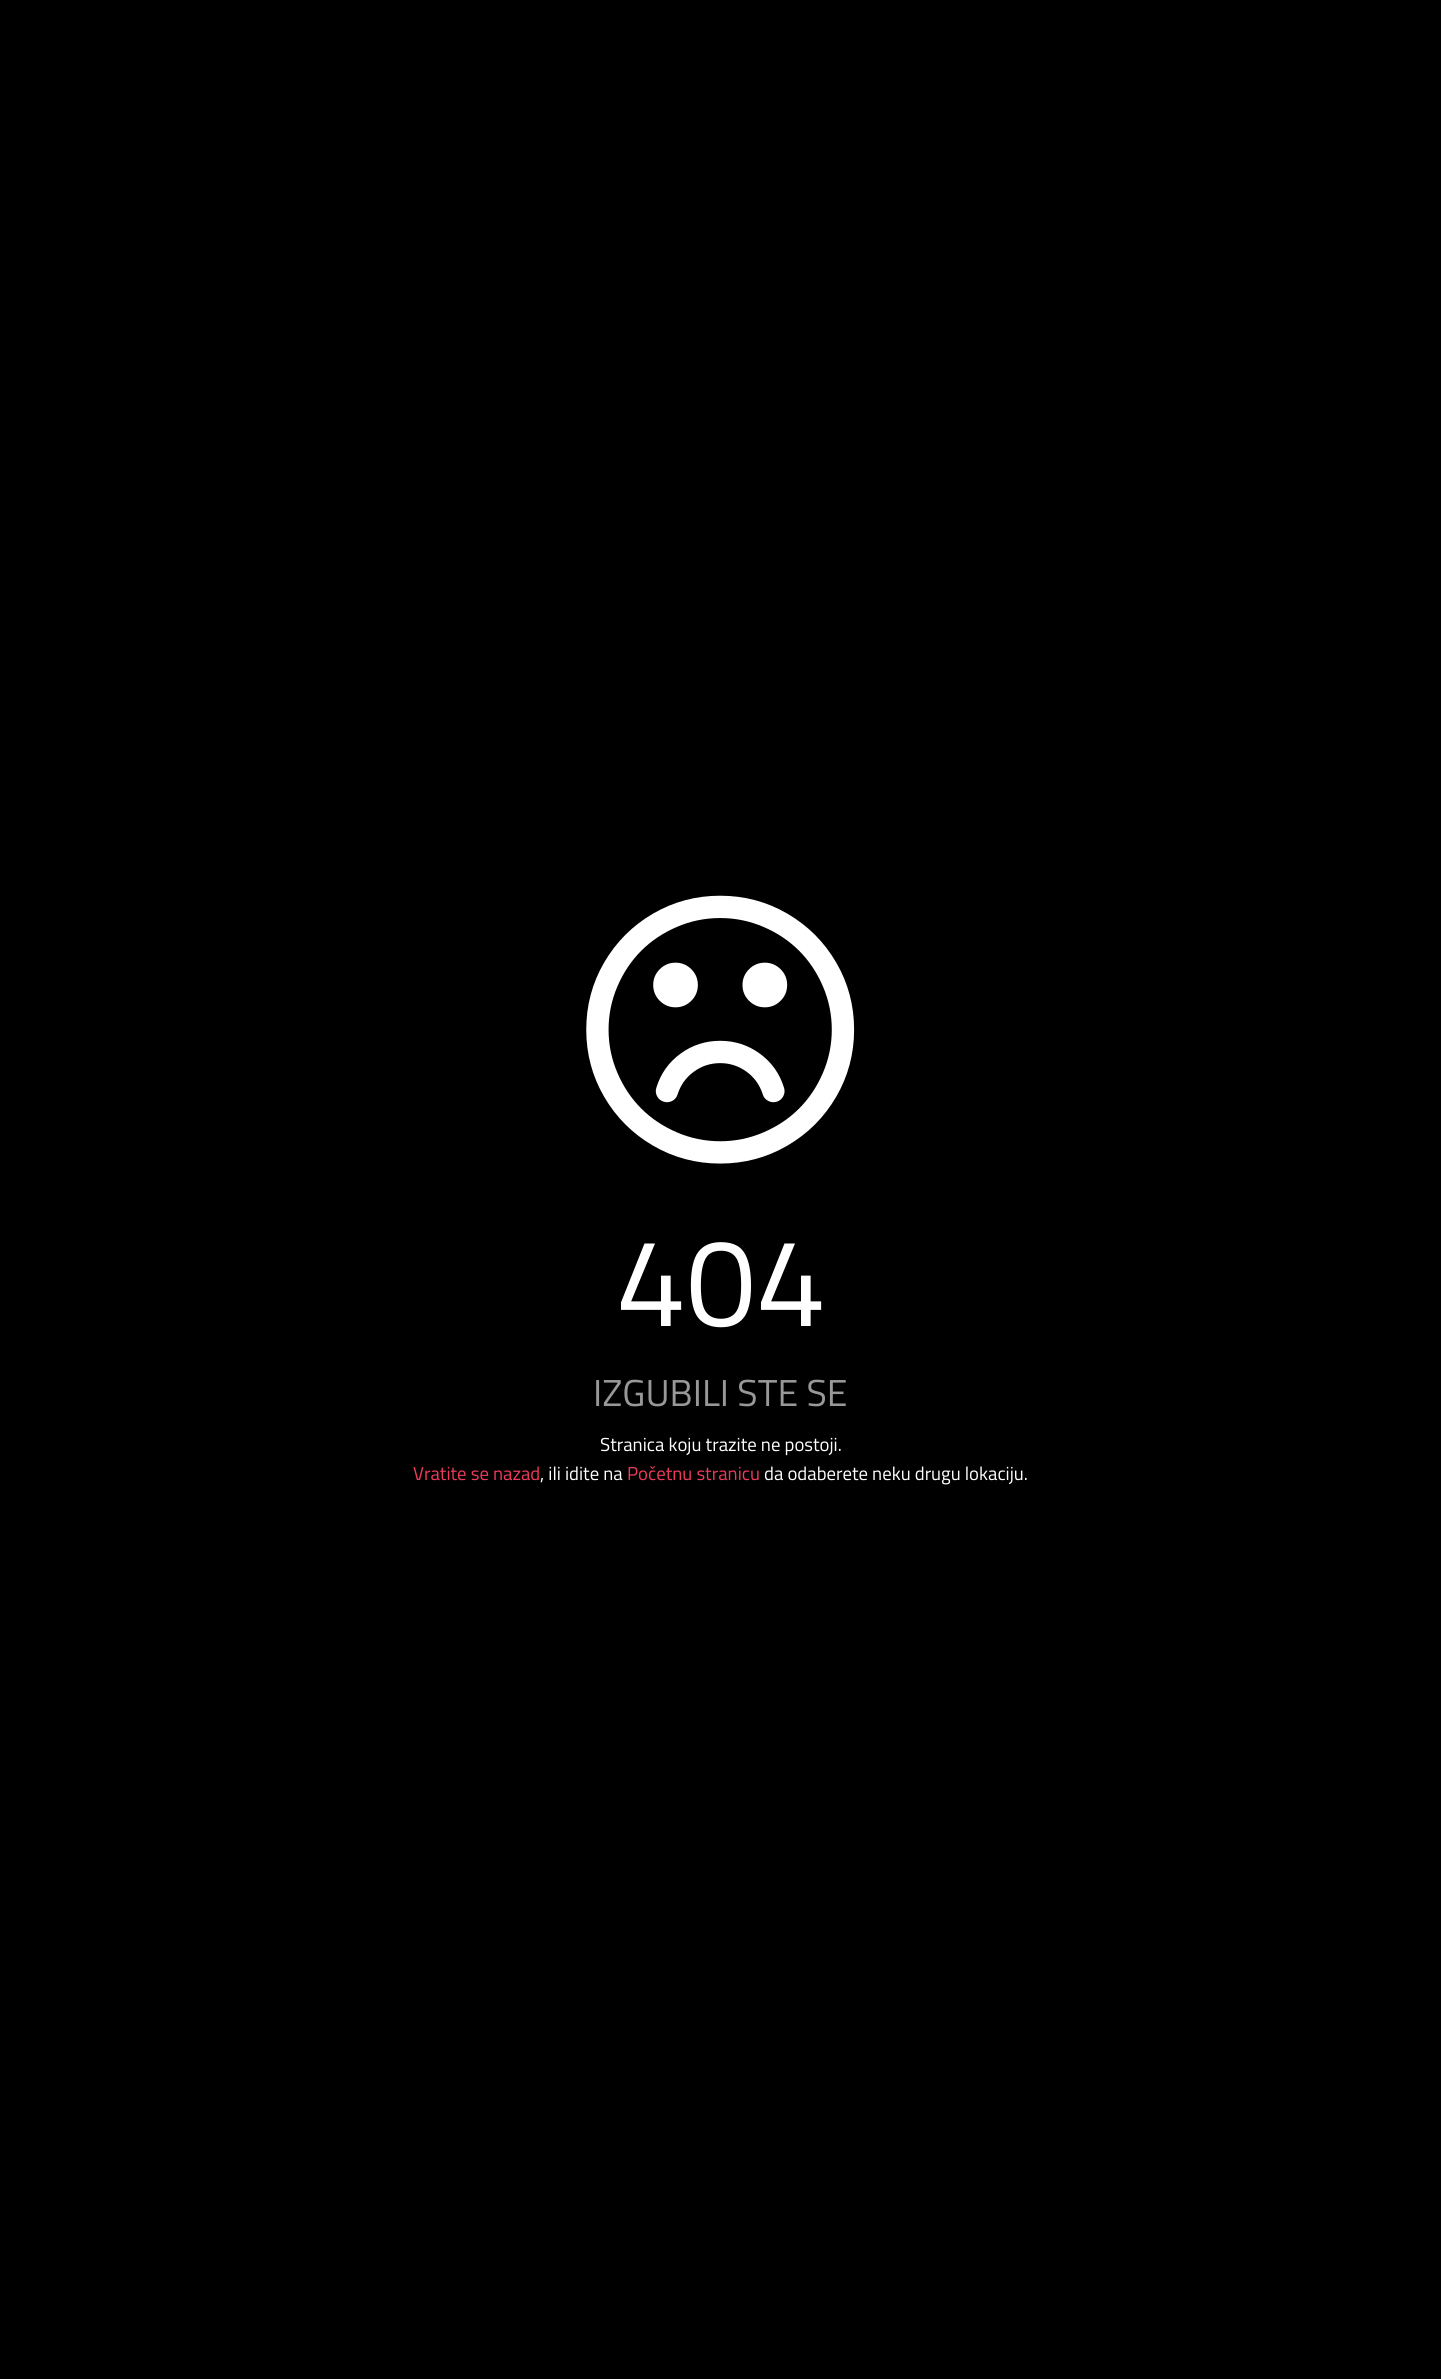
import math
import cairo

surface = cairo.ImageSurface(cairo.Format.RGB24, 1441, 2379)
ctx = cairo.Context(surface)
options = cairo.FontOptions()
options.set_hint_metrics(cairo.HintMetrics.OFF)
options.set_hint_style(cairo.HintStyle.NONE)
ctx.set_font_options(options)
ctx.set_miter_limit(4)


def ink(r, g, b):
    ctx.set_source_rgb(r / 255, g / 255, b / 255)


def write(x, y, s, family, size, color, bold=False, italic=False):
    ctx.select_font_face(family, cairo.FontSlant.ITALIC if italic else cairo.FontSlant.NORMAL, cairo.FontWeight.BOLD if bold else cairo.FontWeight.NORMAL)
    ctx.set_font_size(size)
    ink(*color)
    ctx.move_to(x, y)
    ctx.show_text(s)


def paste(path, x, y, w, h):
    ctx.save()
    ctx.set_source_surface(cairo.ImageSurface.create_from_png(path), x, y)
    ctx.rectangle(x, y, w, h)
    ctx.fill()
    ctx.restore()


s1 = dict(family="Titillium Web", size=125, color=(255, 255, 255))
s2 = dict(family="Titillium Web", size=37.5, color=(153, 152, 153))
s3 = dict(family="Titillium Web", size=18.75, color=(255, 255, 255))
s4 = dict(family="Titillium Web", size=18.75, color=(238, 59, 91))

ink(0, 0, 0)
ctx.paint()
paste("pic1.png", 586, 895, 269, 269)
write(616, 1326, "404", **s1)
write(593, 1406, "IZGUBILI STE SE", **s2)
write(600, 1451, "Stranica koju trazite ne postoji.", **s3)
write(413, 1480, "Vratite se nazad", **s4)
write(540, 1480, ", ili idite na", **s3)
write(627, 1480, "Početnu stranicu", **s4)
write(764, 1480, "da odaberete neku drugu lokaciju.", **s3)
surface.write_to_png("screenshot.png")
